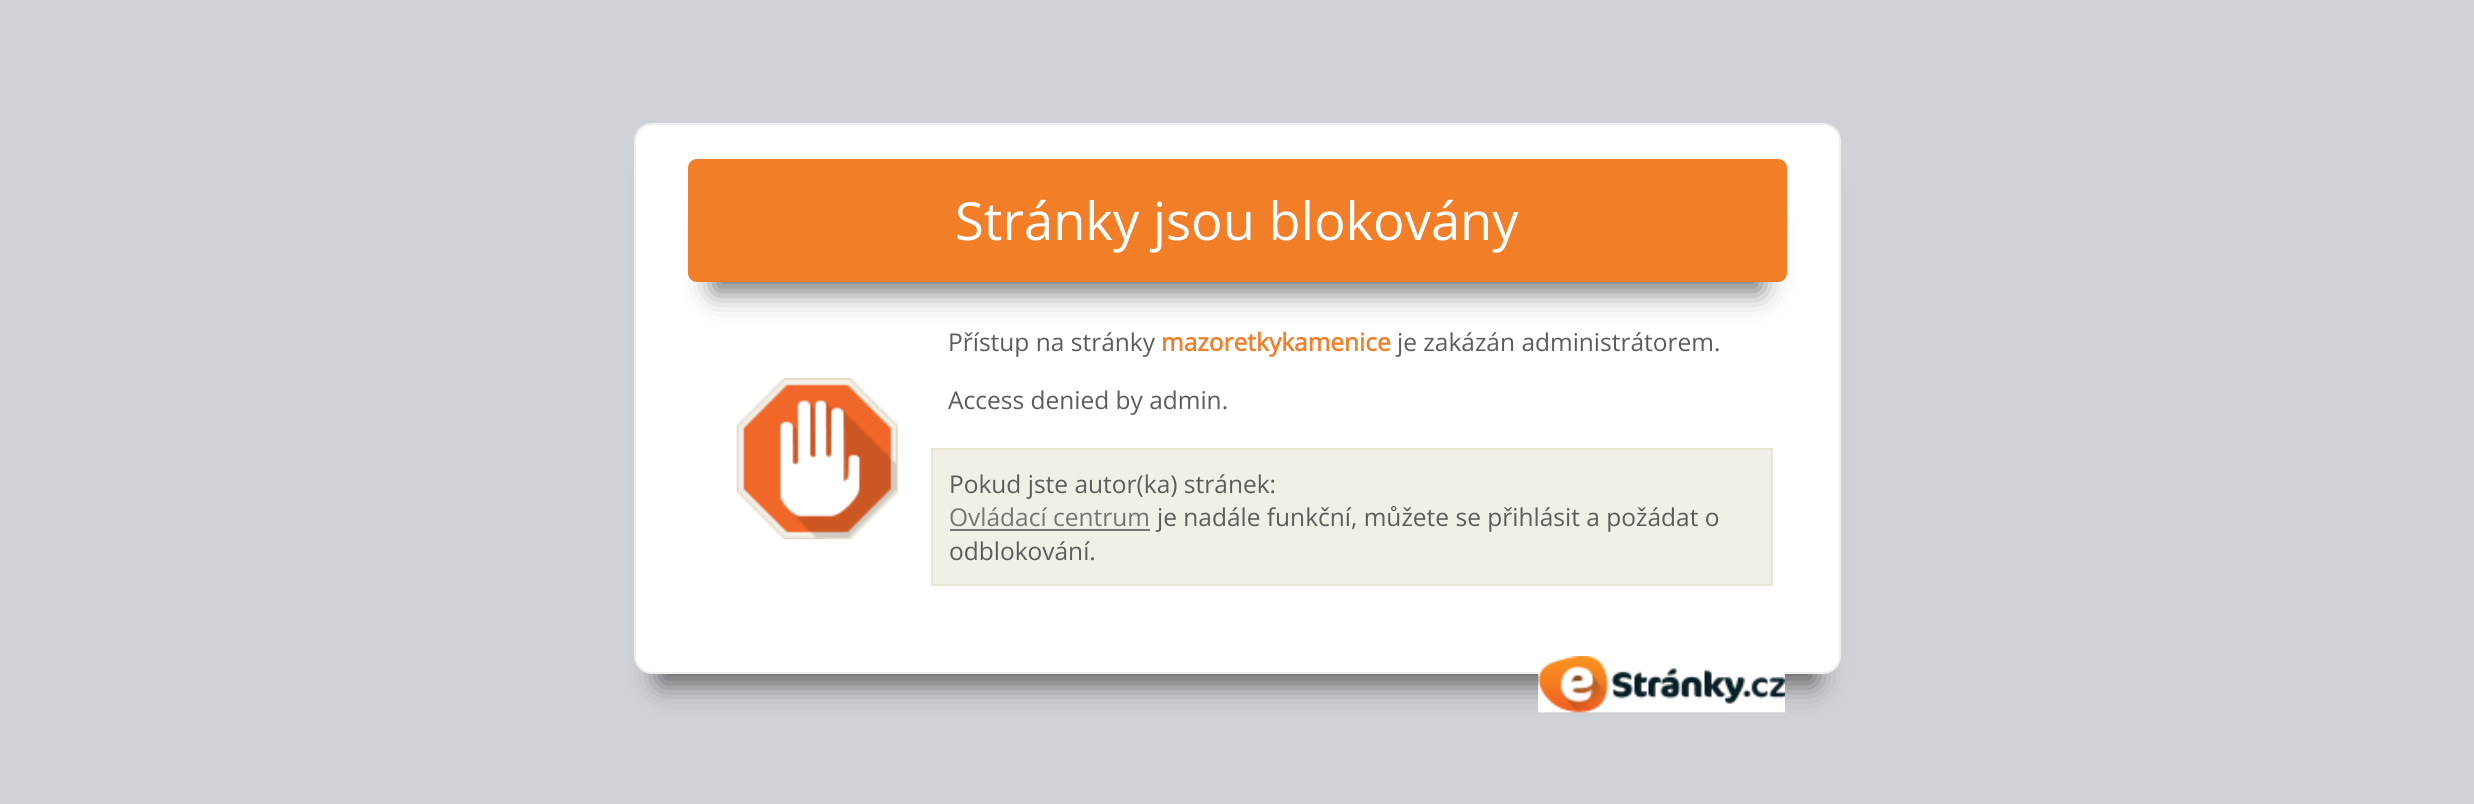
import math
import cairo

surface = cairo.ImageSurface(cairo.Format.RGB24, 2474, 804)
ctx = cairo.Context(surface)
options = cairo.FontOptions()
options.set_hint_metrics(cairo.HintMetrics.OFF)
options.set_hint_style(cairo.HintStyle.NONE)
ctx.set_font_options(options)
ctx.set_miter_limit(4)


def ink(r, g, b):
    ctx.set_source_rgb(r / 255, g / 255, b / 255)


def write(x, y, s, family, size, color, bold=False, italic=False):
    ctx.select_font_face(family, cairo.FontSlant.ITALIC if italic else cairo.FontSlant.NORMAL, cairo.FontWeight.BOLD if bold else cairo.FontWeight.NORMAL)
    ctx.set_font_size(size)
    ink(*color)
    ctx.move_to(x, y)
    ctx.show_text(s)


def block(x, y, w, h, *color):
    ink(*color)
    ctx.rectangle(x, y, w, h)
    ctx.fill()


def round_path(x, y, w, h, r):
    ctx.new_sub_path()
    for i, (u, v) in enumerate([(x + w - r, y + h - r), (x + r, y + h - r), (x + r, y + r), (x + w - r, y + r)]):
        ctx.arc(u, v, r, i * math.pi / 2, (i + 1) * math.pi / 2)
    ctx.close_path()


def blur_box(x, y, w, h, r, blur, alpha):
    ctx.push_group_with_content(cairo.Content.ALPHA)
    ctx.set_operator(cairo.Operator.SOURCE)
    for i in range(15, -16, -2):
        e = blur * i / 6
        if min(w, h) + 2 * e > 0:
            ctx.set_source_rgba(0, 0, 0, alpha * math.erfc((i - 1) / 8.5) / 2)
            round_path(x - e, y - e, w + 2 * e, h + 2 * e, max(0, min(r + e + blur * .6, min(w, h) / 2 + e)))
            ctx.fill()
    ctx.mask(ctx.pop_group())


def paste(path, x, y, w, h):
    ctx.save()
    ctx.set_source_surface(cairo.ImageSurface.create_from_png(path), x, y)
    ctx.rectangle(x, y, w, h)
    ctx.fill()
    ctx.restore()


s1 = dict(family="Open Sans", size=52.5, color=(255, 255, 255))
s2 = dict(family="Open Sans", size=24.5, color=(92, 92, 92))
s3 = dict(family="Open Sans", size=24.5, color=(242, 126, 40), bold=True)
s4 = dict(family="Open Sans", size=24.5, color=(117, 117, 117))

ink(207, 210, 215)
ctx.paint()
ink(0, 0, 0)
blur_box(660, 184, 1155, 499, 0, 14, 0.57)
ink(255, 255, 255)
round_path(635, 124, 1205, 549, 17)
ctx.fill_preserve()
ink(238, 238, 238)
ctx.stroke()
ink(0, 0, 0)
blur_box(714, 221, 1047, 70, 0, 14, 0.57)
ink(242, 126, 40)
round_path(688, 159, 1099, 123, 9)
ctx.fill()
write(955, 240, "Stránky jsou blokovány", **s1)
paste("pic1.png", 736, 378, 162, 161)
write(948, 351, "Přístup na stránky", **s2)
write(1161, 351, "mazoretkykamenice", **s3)
write(1397, 351, "je zakázán administrátorem.", **s2)
write(948, 409, "Access denied by admin.", **s2)
ink(242, 239, 230)
ctx.rectangle(932, 449, 840, 136)
ctx.fill_preserve()
ink(235, 229, 211)
ctx.stroke()
write(949, 493, "Pokud jste autor(ka) stránek:", **s2)
write(949, 526, "Ovládací centrum", **s4)
block(950, 529, 200, 2, 117, 117, 117)
write(1157, 526, "je nadále funkční, můžete se přihlásit a požádat o", **s2)
write(949, 560, "odblokování.", **s2)
paste("pic2.png", 1538, 656, 247, 57)
paste("pic3.png", 1538, 656, 189, 57)
surface.write_to_png("screenshot.png")
